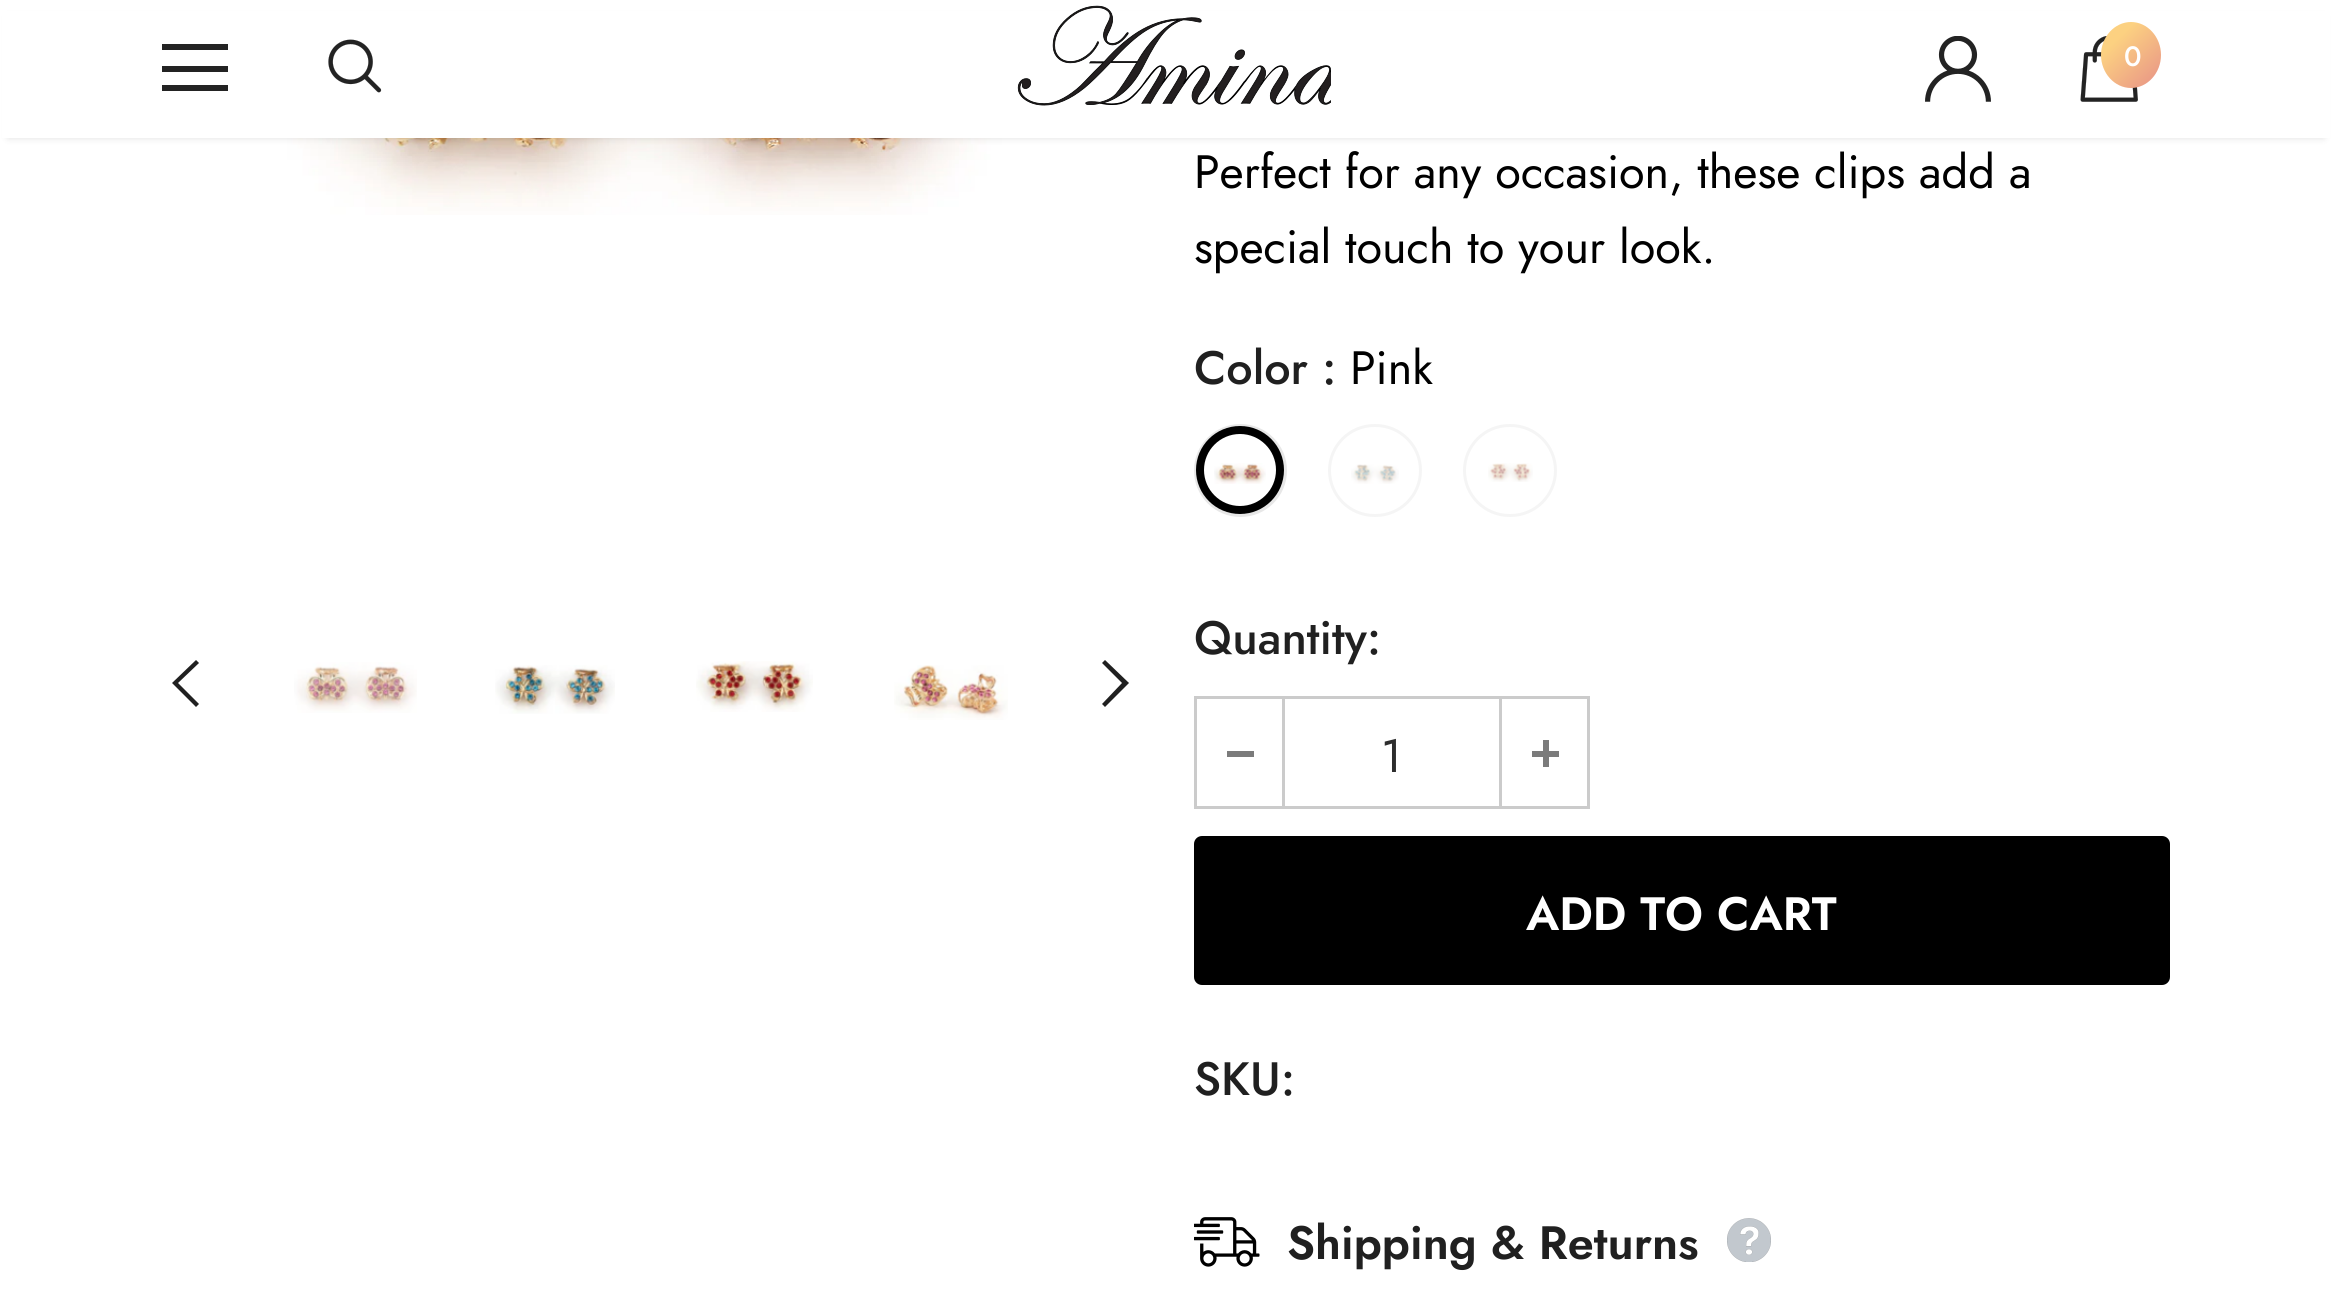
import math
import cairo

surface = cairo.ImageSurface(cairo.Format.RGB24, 2331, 1310)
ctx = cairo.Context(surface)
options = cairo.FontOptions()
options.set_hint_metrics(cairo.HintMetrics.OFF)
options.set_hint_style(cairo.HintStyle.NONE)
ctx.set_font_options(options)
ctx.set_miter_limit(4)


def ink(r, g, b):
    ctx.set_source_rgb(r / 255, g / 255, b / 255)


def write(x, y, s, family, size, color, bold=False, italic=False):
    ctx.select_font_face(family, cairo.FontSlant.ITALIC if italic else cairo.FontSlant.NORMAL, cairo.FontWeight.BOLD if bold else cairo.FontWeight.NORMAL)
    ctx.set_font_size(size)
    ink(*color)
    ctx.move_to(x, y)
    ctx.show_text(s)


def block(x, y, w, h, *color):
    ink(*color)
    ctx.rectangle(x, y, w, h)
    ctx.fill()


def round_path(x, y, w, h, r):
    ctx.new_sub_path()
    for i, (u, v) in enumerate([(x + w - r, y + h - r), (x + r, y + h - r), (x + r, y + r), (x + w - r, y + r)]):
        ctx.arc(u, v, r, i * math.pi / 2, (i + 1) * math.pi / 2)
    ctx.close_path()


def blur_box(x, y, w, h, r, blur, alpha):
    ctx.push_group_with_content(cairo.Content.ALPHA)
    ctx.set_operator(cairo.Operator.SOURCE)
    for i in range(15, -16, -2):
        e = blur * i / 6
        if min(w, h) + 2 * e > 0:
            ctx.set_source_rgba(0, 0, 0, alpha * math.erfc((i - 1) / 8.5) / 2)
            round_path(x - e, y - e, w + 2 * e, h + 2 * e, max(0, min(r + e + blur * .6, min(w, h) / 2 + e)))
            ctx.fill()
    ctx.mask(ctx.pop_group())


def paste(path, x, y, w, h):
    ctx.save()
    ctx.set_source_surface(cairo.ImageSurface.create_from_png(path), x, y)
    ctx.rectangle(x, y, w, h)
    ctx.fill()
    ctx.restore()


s1 = dict(family="Jost Medium", size=28, color=(255, 255, 255))
s2 = dict(family="Jost", size=46.75, color=(0, 0, 0))
s3 = dict(family="Jost Medium", size=46.75, color=(32, 32, 32))
s4 = dict(family="Jost", size=46.75, color=(45, 45, 45))
s5 = dict(family="Jost SemiBold", size=46.75, color=(255, 255, 255))
s6 = dict(family="Jost SemiBold", size=46.75, color=(32, 32, 32))

ink(255, 255, 255)
ctx.paint()
paste("pic5.png", 287, 138, 715, 77)
ink(0, 0, 0)
blur_box(8, 17, 2316, 121, 0, 4, 0.12)
block(2, 11, 2328, 127, 255, 255, 255)
block(162, 44, 66, 6, 35, 35, 35)
block(162, 66, 66, 6, 35, 35, 35)
block(162, 85, 66, 6, 35, 35, 35)
paste("pic1.png", 328, 39, 54, 54)
paste("pic2.png", 1017, 5, 314, 101)
paste("pic3.png", 1925, 36, 66, 66)
paste("pic4.png", 2080, 36, 58, 66)
gradient = cairo.LinearGradient(2163, 87, 2100, 23)
gradient.add_color_stop_rgba(0, 0.906, 0.565, 0.529, 1)
gradient.add_color_stop_rgba(0.74, 0.988, 0.82, 0.506, 1)
ctx.set_source(gradient)
ctx.new_path()
ctx.move_to(2131, 22)
ctx.curve_to(2147.5, 22, 2161, 37, 2161, 55)
ctx.curve_to(2161, 73, 2147.5, 88, 2131, 88)
ctx.curve_to(2114.5, 88, 2101, 73, 2101, 55)
ctx.curve_to(2101, 37, 2114.5, 22, 2131, 22)
ctx.close_path()
ctx.fill()
write(2124, 66, "0", **s1)
ink(32, 32, 32)
ctx.new_path()
ctx.move_to(199, 663)
ctx.line_to(196, 660)
ctx.line_to(172, 683)
ctx.line_to(196, 707)
ctx.line_to(199, 704)
ctx.line_to(178, 683)
ctx.close_path()
ctx.fill()
paste("pic6.png", 294, 662, 123, 51)
paste("pic7.png", 495, 665, 120, 49)
paste("pic8.png", 696, 661, 117, 51)
paste("pic9.png", 894, 665, 114, 55)
ctx.new_path()
ctx.move_to(1105, 660)
ctx.line_to(1102, 663)
ctx.line_to(1122, 683)
ctx.line_to(1102, 704)
ctx.line_to(1105, 707)
ctx.line_to(1129, 683)
ctx.close_path()
ctx.fill()
write(1194, 188, "Perfect for any occasion, these clips add a", **s2)
write(1194, 263, "special touch to your look.", **s2)
write(1194, 384, "Color :", **s3)
write(1350, 384, "Pink", **s2)
ctx.new_path()
ctx.arc(1240.5, 470.5, 45, 0, 2 * math.pi)
ink(231, 231, 231)
ctx.set_line_width(3)
ctx.stroke()
paste("pic10.png", 1214, 463, 52, 21)
ctx.arc(1240, 470, 40, 0, 2 * math.pi)
ink(0, 0, 0)
ctx.set_line_width(8)
ctx.stroke()
round_path(1329.5, 425.5, 91, 90, 45)
ink(245, 245, 245)
ctx.set_line_width(3)
ctx.stroke()
paste("pic11.png", 1351, 464, 48, 20)
round_path(1464.5, 425.5, 91, 90, 45)
ctx.stroke()
paste("pic12.png", 1488, 463, 45, 19)
write(1194, 654, "Quantity:", **s3)
ctx.rectangle(1195.5, 697.5, 393, 110)
ink(203, 203, 203)
ctx.stroke()
block(1282, 699, 3, 107, 203, 203, 203)
block(1227, 751, 27, 6, 123, 123, 123)
write(1381, 772, "1", **s4)
block(1499, 699, 3, 107, 203, 203, 203)
block(1532, 751, 27, 6, 123, 123, 123)
block(1543, 740, 6, 27, 123, 123, 123)
ink(0, 0, 0)
round_path(1195.5, 837.5, 973, 146, 6.5)
ctx.fill_preserve()
ctx.stroke()
write(1526, 930, "ADD TO CART", **s5)
write(1194, 1095, "SKU:", **s3)
paste("pic13.png", 1194, 1217, 66, 50)
write(1287, 1259, "Shipping & Returns", **s6)
paste("pic14.png", 1727, 1218, 44, 44)
surface.write_to_png("screenshot.png")
